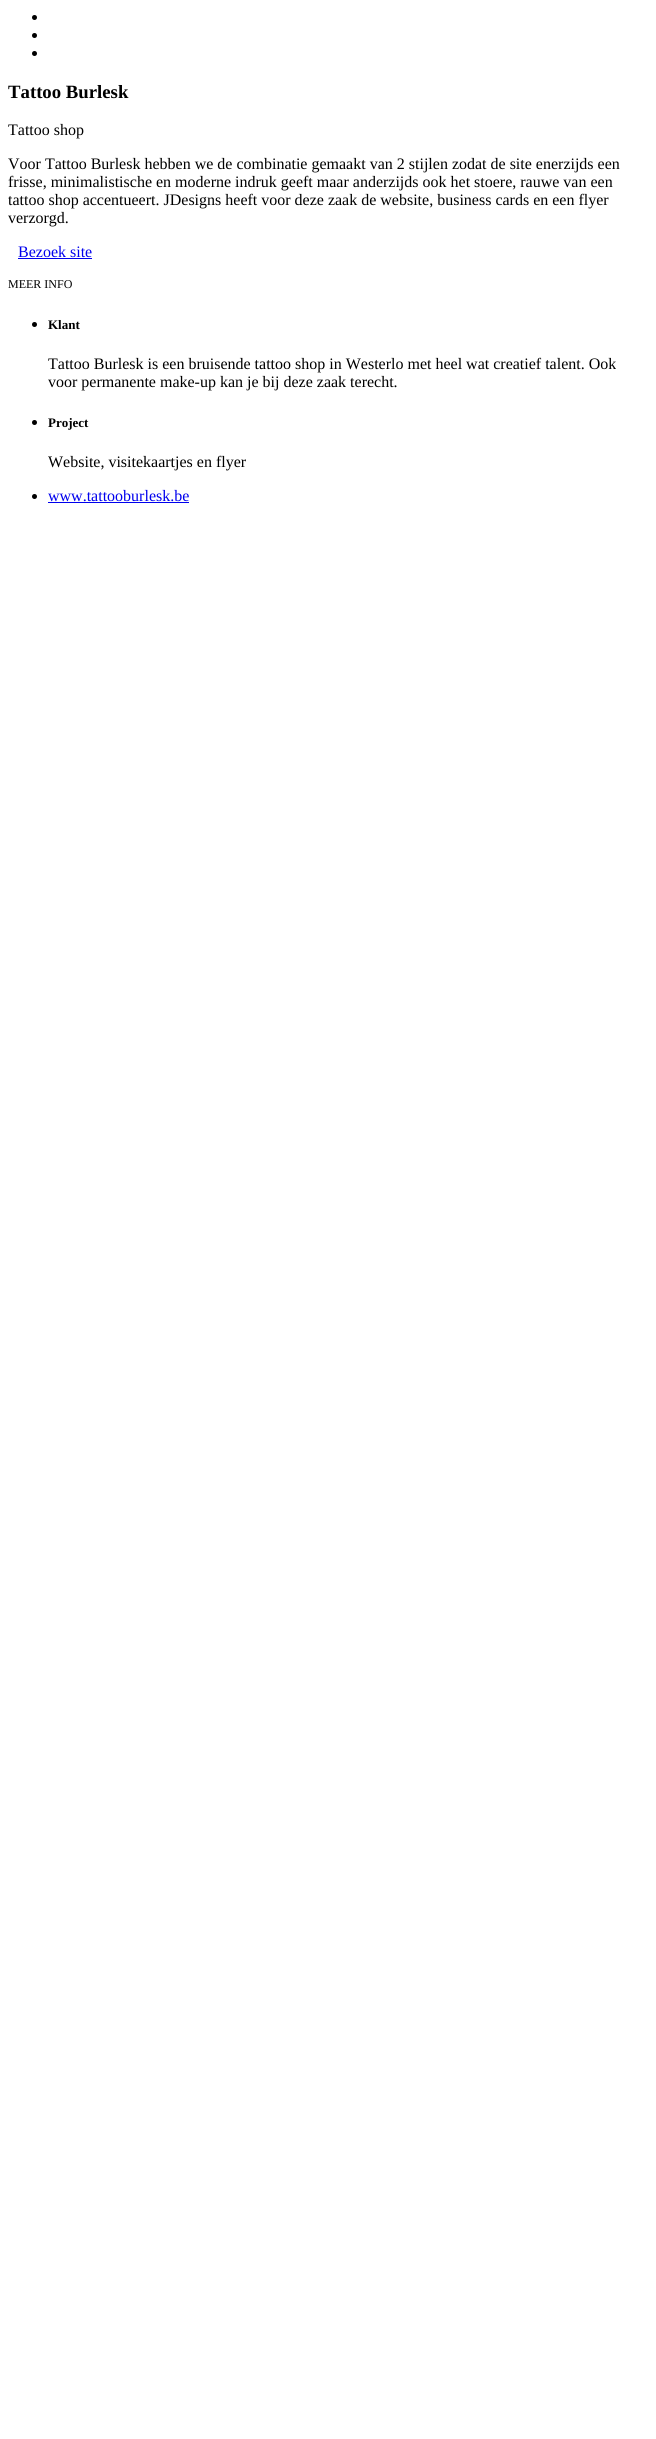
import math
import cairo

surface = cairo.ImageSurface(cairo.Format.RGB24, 656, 2439)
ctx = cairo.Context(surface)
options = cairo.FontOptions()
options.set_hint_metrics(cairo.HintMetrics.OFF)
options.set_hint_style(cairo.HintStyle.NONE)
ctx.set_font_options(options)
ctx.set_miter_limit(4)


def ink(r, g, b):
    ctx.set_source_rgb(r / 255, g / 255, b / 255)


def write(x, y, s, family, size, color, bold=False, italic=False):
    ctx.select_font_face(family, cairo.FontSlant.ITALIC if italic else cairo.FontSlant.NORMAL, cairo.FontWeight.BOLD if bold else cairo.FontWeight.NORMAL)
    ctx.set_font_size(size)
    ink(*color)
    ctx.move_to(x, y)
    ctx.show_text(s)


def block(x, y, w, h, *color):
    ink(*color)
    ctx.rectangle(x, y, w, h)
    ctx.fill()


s1 = dict(family="Liberation Serif", size=18.75, color=(0, 0, 0), bold=True)
s2 = dict(family="Liberation Serif", size=16, color=(0, 0, 0))
s3 = dict(family="Liberation Serif", size=16, color=(0, 0, 238))
s4 = dict(family="Liberation Serif", size=12, color=(0, 0, 0))
s5 = dict(family="Liberation Serif", size=13, color=(0, 0, 0), bold=True)

ink(255, 255, 255)
ctx.paint()
ink(0, 0, 0)
ctx.arc(34.5, 17.5, 2.5, 0, 2 * math.pi)
ctx.fill()
ctx.arc(34.5, 35.5, 2.5, 0, 2 * math.pi)
ctx.fill()
ctx.arc(34.5, 53.5, 2.5, 0, 2 * math.pi)
ctx.fill()
write(8, 98, "Tattoo Burlesk", **s1)
write(8, 135, "Tattoo shop", **s2)
write(8, 169, "Voor Tattoo Burlesk hebben we de combinatie gemaakt van 2 stijlen zodat de site enerzijds een", **s2)
write(8, 187, "frisse, minimalistische en moderne indruk geeft maar anderzijds ook het stoere, rauwe van een", **s2)
write(8, 205, "tattoo shop accentueert. JDesigns heeft voor deze zaak de website, business cards en een flyer", **s2)
write(8, 223, "verzorgd.", **s2)
write(18, 257, "Bezoek site", **s3)
block(18, 258, 74, 1, 0, 0, 238)
write(8, 288, "MEER INFO", **s4)
ctx.new_path()
ctx.arc(34.5, 324.5, 2.5, 0, 2 * math.pi)
ctx.fill()
write(48, 329, "Klant", **s5)
write(48, 369, "Tattoo Burlesk is een bruisende tattoo shop in Westerlo met heel wat creatief talent. Ook", **s2)
write(48, 387, "voor permanente make-up kan je bij deze zaak terecht.", **s2)
ctx.new_path()
ctx.arc(34.5, 422.5, 2.5, 0, 2 * math.pi)
ctx.fill()
write(48, 427, "Project", **s5)
write(48, 467, "Website, visitekaartjes en flyer", **s2)
ctx.new_path()
ctx.arc(34.5, 496.5, 2.5, 0, 2 * math.pi)
ctx.fill()
write(48, 501, "www.tattooburlesk.be", **s3)
block(48, 502, 141, 1, 0, 0, 238)
surface.write_to_png("screenshot.png")
